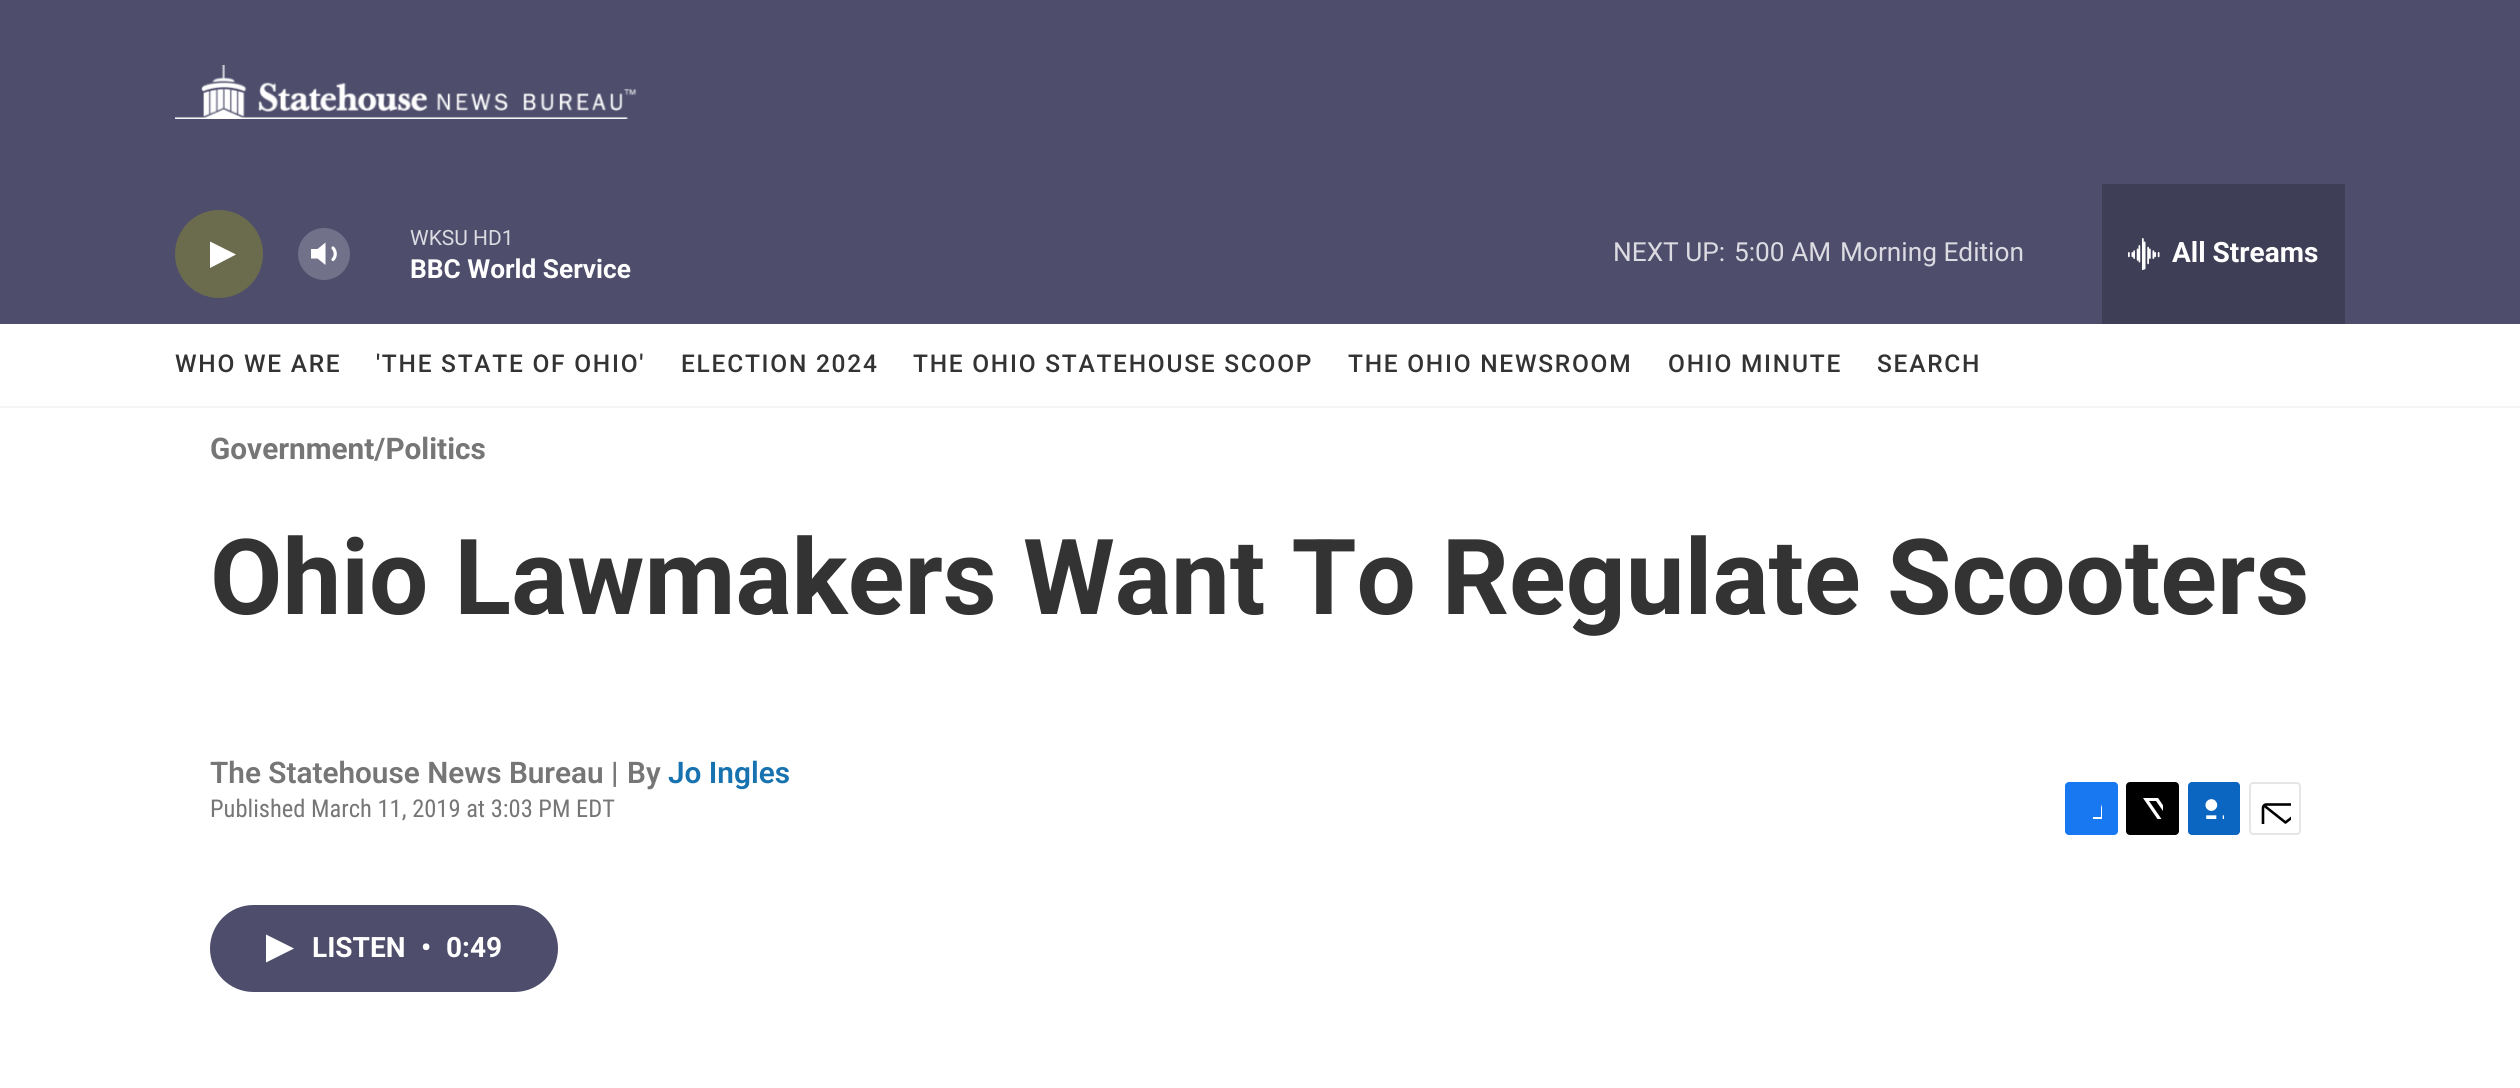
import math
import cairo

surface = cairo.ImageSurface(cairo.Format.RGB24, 2520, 1088)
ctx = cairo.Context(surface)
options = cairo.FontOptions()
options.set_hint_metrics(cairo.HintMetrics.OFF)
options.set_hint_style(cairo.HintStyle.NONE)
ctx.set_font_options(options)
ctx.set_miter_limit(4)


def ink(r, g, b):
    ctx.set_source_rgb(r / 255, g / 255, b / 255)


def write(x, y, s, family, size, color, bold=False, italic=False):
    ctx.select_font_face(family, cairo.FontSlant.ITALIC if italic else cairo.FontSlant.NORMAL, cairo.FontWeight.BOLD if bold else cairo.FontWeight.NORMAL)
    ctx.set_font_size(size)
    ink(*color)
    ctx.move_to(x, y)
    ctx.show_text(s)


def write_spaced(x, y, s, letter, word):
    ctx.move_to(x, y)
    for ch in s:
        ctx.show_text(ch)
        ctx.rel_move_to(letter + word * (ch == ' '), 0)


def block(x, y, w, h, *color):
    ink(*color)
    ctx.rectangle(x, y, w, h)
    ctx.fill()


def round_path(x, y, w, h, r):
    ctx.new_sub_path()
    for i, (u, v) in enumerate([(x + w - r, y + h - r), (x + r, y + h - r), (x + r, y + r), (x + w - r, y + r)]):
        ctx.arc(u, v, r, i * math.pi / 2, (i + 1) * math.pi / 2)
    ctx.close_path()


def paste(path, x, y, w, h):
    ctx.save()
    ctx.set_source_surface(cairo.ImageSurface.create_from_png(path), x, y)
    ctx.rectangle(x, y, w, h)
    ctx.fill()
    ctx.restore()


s1 = dict(family="Roboto", size=21, color=(220, 219, 226))
s2 = dict(family="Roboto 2", size=26.25, color=(255, 255, 255), bold=True)
s3 = dict(family="Roboto", size=26.25, color=(220, 219, 226))
s4 = dict(family="Roboto 2", size=28, color=(255, 255, 255), bold=True)
s5 = dict(family="Roboto", size=29.75, color=(118, 118, 118), bold=True)
s6 = dict(family="Roboto", size=105, color=(51, 51, 51), bold=True)
s7 = dict(family="Roboto SemiBold", size=29.75, color=(118, 118, 118))
s8 = dict(family="Roboto SemiBold", size=29.75, color=(23, 114, 176))
s9 = dict(family="Roboto Condensed", size=24.5, color=(118, 118, 118))

ink(255, 255, 255)
ctx.paint()
block(0, 0, 2520, 324, 78, 77, 108)
block(0, 406, 2520, 2, 245, 245, 245)
paste("pic1.png", 175, 65, 462, 54)
ink(107, 108, 77)
ctx.arc(219, 254, 44, 0, 2 * math.pi)
ctx.fill()
ink(255, 255, 255)
ctx.new_path()
ctx.move_to(210, 241.5)
ctx.line_to(236, 254.5)
ctx.line_to(210, 268)
ctx.close_path()
ctx.fill()
ctx.new_path()
ctx.move_to(325.5, 242.5)
ctx.line_to(317.5, 249)
ctx.line_to(311, 249)
ctx.line_to(311, 258.5)
ctx.line_to(317.5, 258.5)
ctx.line_to(325.5, 265)
ctx.close_path()
ctx.fill()
ctx.new_path()
ctx.move_to(333, 248)
ctx.curve_to(336, 251.5, 336, 256.5, 333, 259.5)
ctx.set_line_width(3.2)
ctx.set_line_cap(cairo.LineCap.ROUND)
ctx.set_line_join(cairo.LineJoin.ROUND)
ctx.stroke()
ctx.set_source_rgba(1, 1, 1, 0.2)
ctx.arc(324, 254, 26, 0, 2 * math.pi)
ctx.fill()
write(410, 245, "WKSU HD1", **s1)
write(410, 278, "BBC World Service", **s2)
write(1613, 261, "NEXT UP:", **s3)
write(1734, 261, "5:00 AM", **s3)
write(1840, 261, "Morning Edition", **s3)
block(2102, 184, 243, 140, 62, 62, 86)
paste("pic2.png", 2128, 238, 32, 32)
write(2172, 262, "All Streams", **s4)
ctx.select_font_face("Roboto Medium")
ctx.set_font_size(24.5)
ink(51, 51, 51)
write_spaced(175, 372, "WHO WE ARE", 1.75, 0)
write_spaced(376, 372, "'THE STATE OF OHIO'", 1.75, 0)
write_spaced(681, 372, "ELECTION 2024", 1.75, 0)
write_spaced(913, 372, "THE OHIO STATEHOUSE SCOOP", 1.75, 0)
write_spaced(1348, 372, "THE OHIO NEWSROOM", 1.75, 0)
write_spaced(1668, 372, "OHIO MINUTE", 1.75, 0)
write_spaced(1877, 372, "SEARCH", 1.75, 0)
write(210, 459, "Government/Politics", **s5)
write(210, 614, "Ohio Lawmakers Want To Regulate Scooters", **s6)
write(210, 783, "The Statehouse News Bureau |", **s7)
write(627, 783, "By", **s7)
write(668, 783, "Jo Ingles", **s8)
write(210, 817, "Published March 11, 2019 at 3:03 PM EDT", **s9)
ink(23, 120, 242)
round_path(2065, 782, 53, 53, 4)
ctx.fill()
ctx.save()
ctx.rectangle(2081, 798, 21, 21)
ctx.clip()
ink(255, 255, 255)
ctx.new_path()
ctx.move_to(2110, 835)
ctx.line_to(2101, 835)
ctx.line_to(2101, 826)
ctx.line_to(2093, 826)
ctx.line_to(2093, 817)
ctx.line_to(2101, 817)
ctx.line_to(2101, 808)
ctx.curve_to(2102, 799.5, 2110.5, 798, 2118, 799)
ctx.line_to(2118, 807)
ctx.curve_to(2108.5, 807, 2110, 809.5, 2110, 817)
ctx.line_to(2118, 817)
ctx.line_to(2117, 826)
ctx.line_to(2110, 826)
ctx.close_path()
ctx.fill()
ctx.restore()
ink(0, 0, 0)
round_path(2126, 782, 53, 53, 4)
ctx.fill()
ctx.save()
ctx.rectangle(2142, 798, 21, 21)
ctx.clip()
ink(255, 255, 255)
ctx.new_path()
ctx.move_to(2173, 820)
ctx.line_to(2179, 828.5)
ctx.curve_to(2179, 830, 2179, 832, 2178.5, 833)
ctx.line_to(2156, 801)
ctx.line_to(2149, 801)
ctx.line_to(2172.5, 835)
ctx.line_to(2168.5, 835)
ctx.line_to(2165, 830)
ctx.line_to(2160.5, 835)
ctx.line_to(2156, 835)
ctx.line_to(2163, 827)
ctx.line_to(2143, 798)
ctx.line_to(2158, 798)
ctx.line_to(2171, 817)
ctx.line_to(2179, 808)
ctx.line_to(2179, 813)
ctx.close_path()
ctx.fill()
ctx.restore()
ink(10, 102, 193)
round_path(2188, 782, 52, 53, 4)
ctx.fill()
paste("pic3.png", 2205, 799, 19, 20)
round_path(2250, 783, 50, 51, 3)
ink(230, 230, 230)
ctx.set_line_width(2)
ctx.set_line_cap(cairo.LineCap.BUTT)
ctx.set_line_join(cairo.LineJoin.MITER)
ctx.stroke()
ctx.save()
ctx.rectangle(2259, 793, 32, 31)
ctx.clip()
ctx.new_path()
ctx.move_to(2308, 831)
ctx.curve_to(2308, 833, 2306.5, 834.5, 2305, 834.5)
ctx.line_to(2266, 834.5)
ctx.curve_to(2264.5, 834.5, 2263, 833, 2263, 831)
ctx.line_to(2263, 807.5)
ctx.curve_to(2263, 806, 2264.5, 804.5, 2266, 804.5)
ctx.line_to(2305, 804.5)
ctx.curve_to(2306.5, 804.5, 2308, 806, 2308, 807.5)
ctx.close_path()
ctx.move_to(2307, 805.5)
ctx.line_to(2285.5, 822.5)
ctx.line_to(2264, 805.5)
ink(0, 0, 0)
ctx.set_line_width(2.6)
ctx.set_line_cap(cairo.LineCap.ROUND)
ctx.set_line_join(cairo.LineJoin.ROUND)
ctx.stroke()
ctx.restore()
ink(78, 77, 108)
round_path(210, 905, 348, 87, 43.5)
ctx.fill()
ink(255, 255, 255)
ctx.new_path()
ctx.move_to(266, 934.5)
ctx.line_to(294, 948.5)
ctx.line_to(266, 962.5)
ctx.close_path()
ctx.fill()
write(312, 957, "LISTEN", **s4)
write(421, 957, "•", **s4)
write(446, 957, "0:49", **s4)
surface.write_to_png("screenshot.png")
